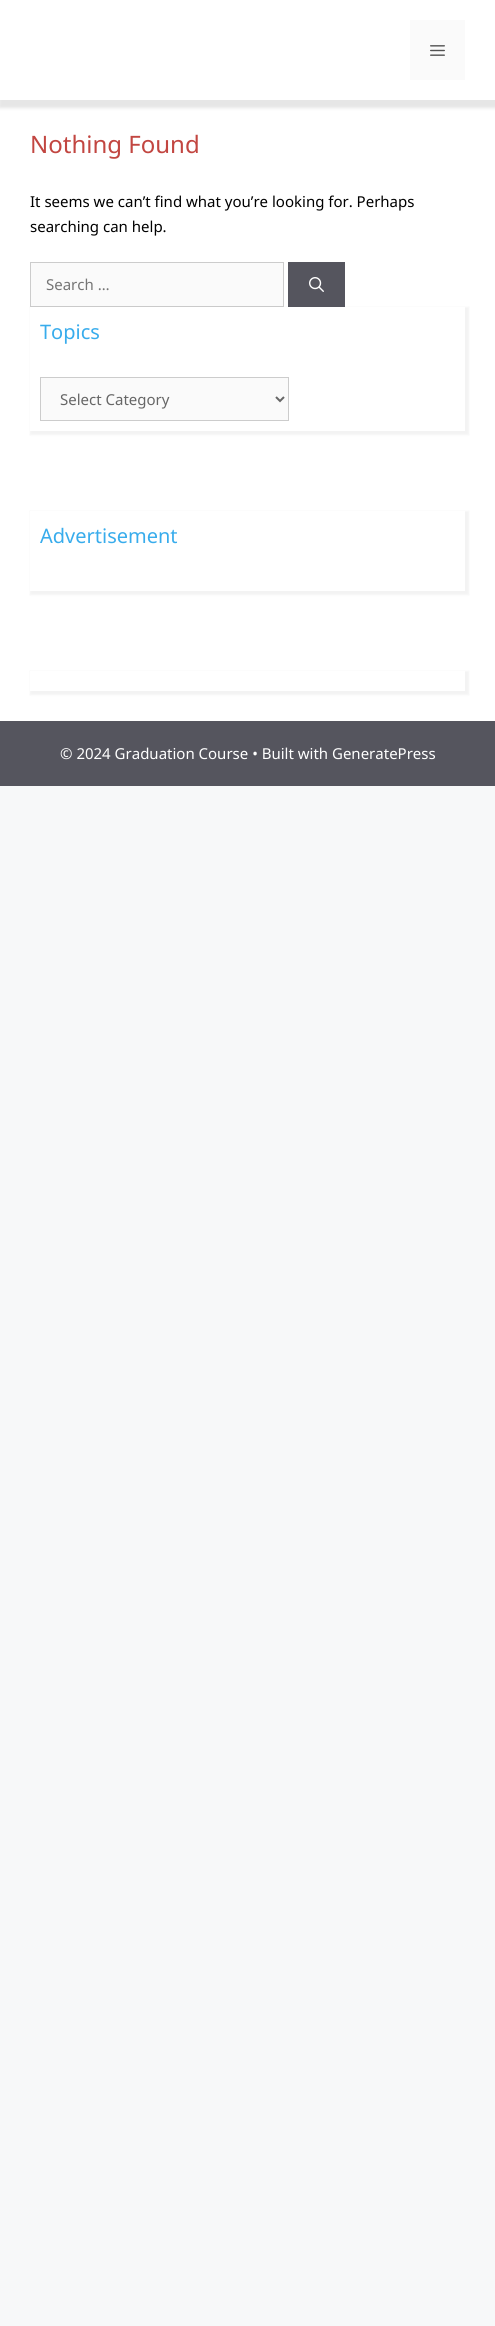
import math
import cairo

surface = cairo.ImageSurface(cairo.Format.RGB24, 495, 2326)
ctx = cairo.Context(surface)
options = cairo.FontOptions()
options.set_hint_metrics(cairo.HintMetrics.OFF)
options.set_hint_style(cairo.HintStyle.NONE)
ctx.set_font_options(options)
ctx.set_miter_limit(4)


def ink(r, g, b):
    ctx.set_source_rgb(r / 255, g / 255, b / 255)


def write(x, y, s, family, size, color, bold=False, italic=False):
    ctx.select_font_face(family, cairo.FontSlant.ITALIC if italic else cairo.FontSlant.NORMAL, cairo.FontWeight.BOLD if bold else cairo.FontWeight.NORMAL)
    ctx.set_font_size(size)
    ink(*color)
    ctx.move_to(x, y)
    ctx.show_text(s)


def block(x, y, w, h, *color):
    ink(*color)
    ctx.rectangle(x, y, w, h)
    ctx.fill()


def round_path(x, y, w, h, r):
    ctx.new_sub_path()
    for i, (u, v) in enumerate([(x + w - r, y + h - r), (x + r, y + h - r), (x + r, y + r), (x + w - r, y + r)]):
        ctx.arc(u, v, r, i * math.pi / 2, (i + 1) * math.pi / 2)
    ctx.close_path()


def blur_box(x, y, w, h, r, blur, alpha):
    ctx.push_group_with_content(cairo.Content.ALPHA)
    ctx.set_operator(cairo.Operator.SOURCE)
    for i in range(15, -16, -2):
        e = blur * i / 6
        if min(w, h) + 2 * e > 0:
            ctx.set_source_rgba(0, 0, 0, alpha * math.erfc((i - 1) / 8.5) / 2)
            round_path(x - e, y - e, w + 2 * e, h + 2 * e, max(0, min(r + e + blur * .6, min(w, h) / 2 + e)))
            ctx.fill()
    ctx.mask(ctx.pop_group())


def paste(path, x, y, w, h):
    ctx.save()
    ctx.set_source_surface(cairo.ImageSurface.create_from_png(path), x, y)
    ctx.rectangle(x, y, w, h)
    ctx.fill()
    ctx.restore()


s1 = dict(family="Noto Sans", size=24, color=(194, 70, 65))
s2 = dict(family="Noto Sans", size=15, color=(0, 0, 0))
s3 = dict(family="Noto Sans", size=15, color=(117, 117, 117))
s4 = dict(family="Noto Sans", size=20, color=(56, 172, 236))
s5 = dict(family="Noto Sans", size=15, color=(102, 102, 102))
s6 = dict(family="Noto Sans", size=15, color=(255, 255, 255))

ink(247, 248, 249)
ctx.paint()
block(0, 100, 495, 621, 255, 255, 255)
ink(0, 0, 0)
blur_box(-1, 4, 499, 104, 0, 1.5, 0.1)
block(0, 0, 495, 100, 255, 255, 255)
block(410, 20, 55, 60, 250, 250, 250)
paste("pic1.png", 430, 45, 15, 11)
write(30, 153, "Nothing Found", **s1)
write(30, 207, "It seems we can’t find what you’re looking for. Perhaps", **s2)
write(30, 232, "searching can help.", **s2)
ink(250, 250, 250)
ctx.rectangle(30.5, 262.5, 253, 44)
ctx.fill_preserve()
ink(204, 204, 204)
ctx.set_line_width(1)
ctx.stroke()
write(46, 290, "Search …", **s3)
block(288, 262, 57, 45, 85, 85, 94)
paste("pic2.png", 309, 277, 15, 15)
ctx.save()
ctx.set_fill_rule(cairo.FillRule.EVEN_ODD)
ctx.new_path()
ctx.move_to(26, 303)
ctx.line_to(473, 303)
ctx.line_to(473, 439)
ctx.line_to(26, 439)
ctx.close_path()
ctx.move_to(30, 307)
ctx.line_to(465, 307)
ctx.line_to(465, 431)
ctx.line_to(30, 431)
ctx.close_path()
ctx.clip()
ink(0, 0, 0)
blur_box(30, 307, 439, 128, 0, 1, 0.05)
ctx.restore()
write(40, 339, "Topics", **s4)
ink(250, 250, 250)
ctx.rectangle(40.5, 377.5, 248, 43)
ctx.fill_preserve()
ink(204, 204, 204)
ctx.stroke()
ctx.new_path()
ctx.move_to(276, 397)
ctx.line_to(280, 401)
ctx.line_to(284, 397)
ink(102, 102, 102)
ctx.set_line_width(2)
ctx.stroke()
write(60, 405, "Select Category", **s5)
ctx.save()
ctx.set_fill_rule(cairo.FillRule.EVEN_ODD)
ctx.new_path()
ctx.move_to(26, 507)
ctx.line_to(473, 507)
ctx.line_to(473, 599)
ctx.line_to(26, 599)
ctx.close_path()
ctx.move_to(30, 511)
ctx.line_to(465, 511)
ctx.line_to(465, 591)
ctx.line_to(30, 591)
ctx.close_path()
ctx.clip()
ink(0, 0, 0)
blur_box(30, 511, 439, 84, 0, 1, 0.05)
ctx.restore()
write(40, 543, "Advertisement", **s4)
ctx.save()
ctx.set_fill_rule(cairo.FillRule.EVEN_ODD)
ctx.new_path()
ctx.move_to(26, 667)
ctx.line_to(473, 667)
ctx.line_to(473, 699)
ctx.line_to(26, 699)
ctx.close_path()
ctx.move_to(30, 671)
ctx.line_to(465, 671)
ctx.line_to(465, 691)
ctx.line_to(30, 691)
ctx.close_path()
ctx.clip()
ink(0, 0, 0)
blur_box(30, 671, 439, 24, 0, 1, 0.05)
ctx.restore()
block(0, 721, 495, 65, 85, 85, 94)
write(60, 759, "© 2024 Graduation Course • Built with GeneratePress", **s6)
surface.write_to_png("screenshot.png")
